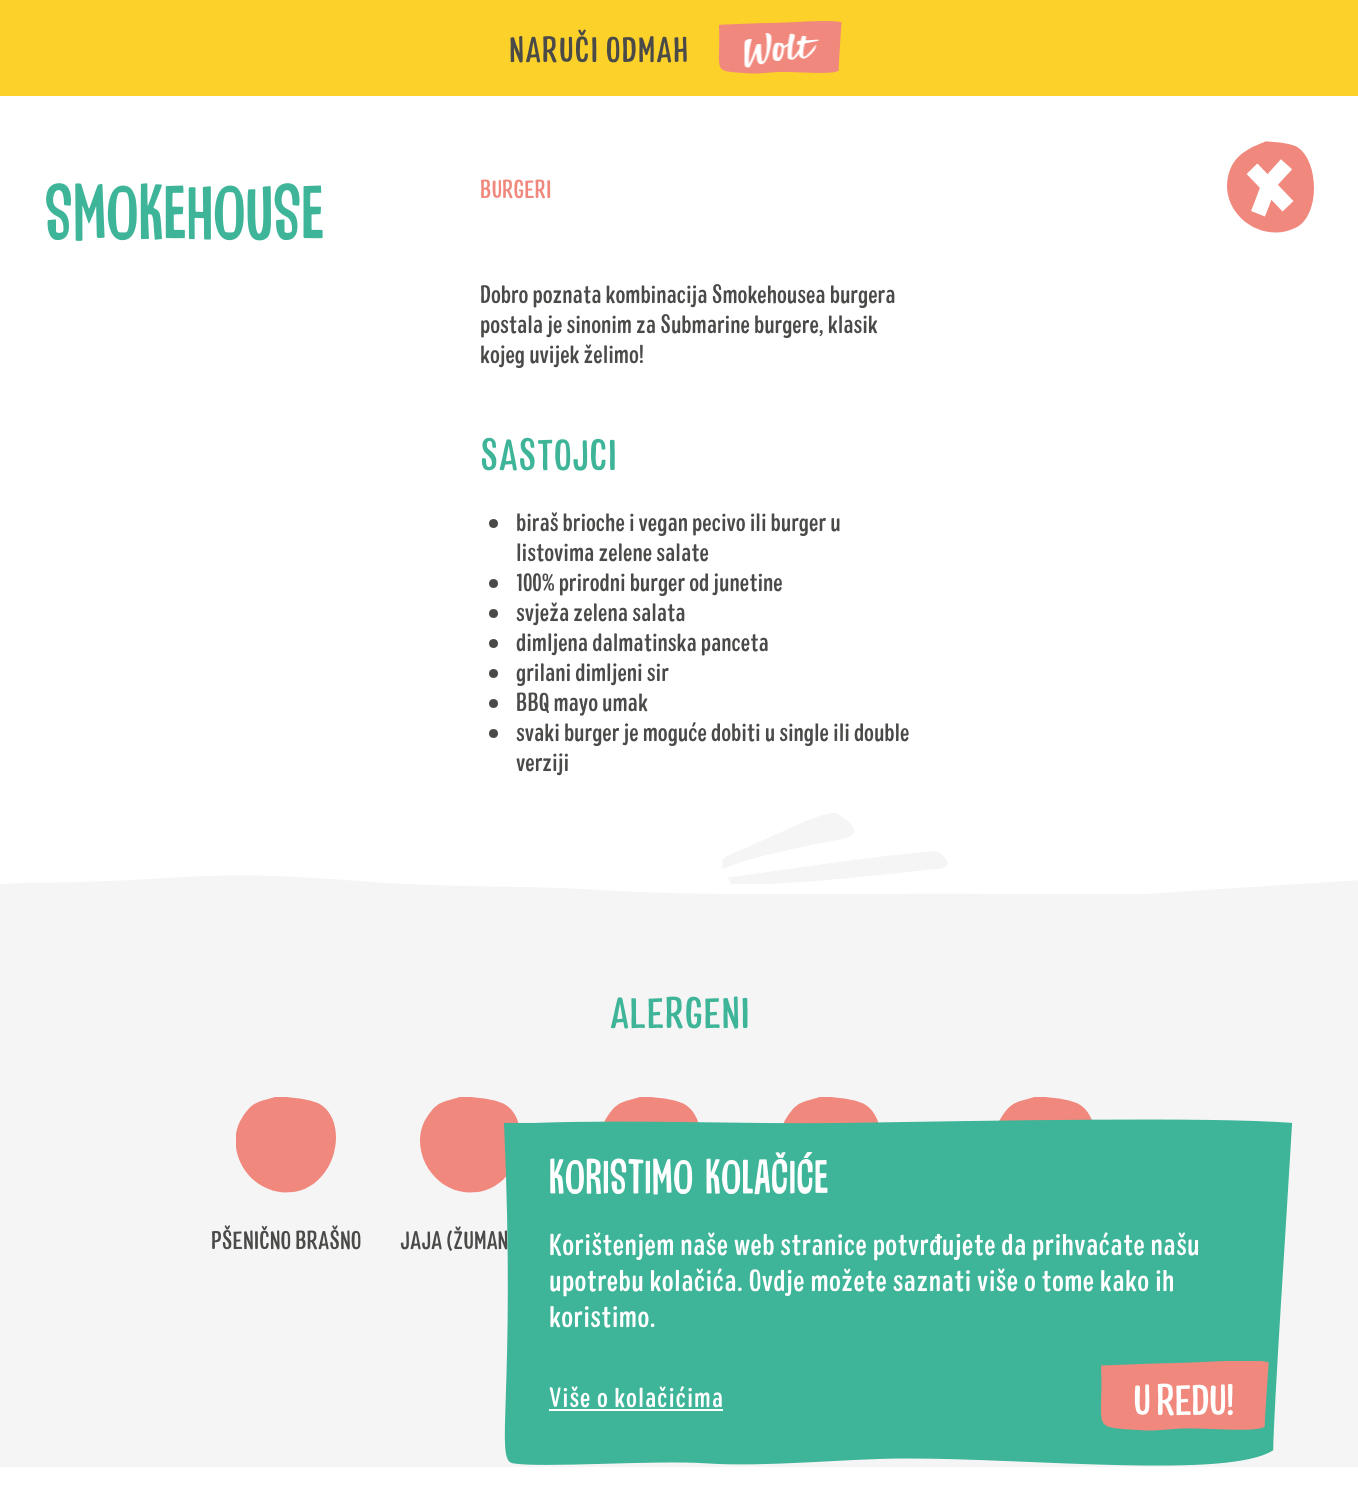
import math
import cairo

surface = cairo.ImageSurface(cairo.Format.RGB24, 1358, 1499)
ctx = cairo.Context(surface)
options = cairo.FontOptions()
options.set_hint_metrics(cairo.HintMetrics.OFF)
options.set_hint_style(cairo.HintStyle.NONE)
ctx.set_font_options(options)
ctx.set_miter_limit(4)


def ink(r, g, b):
    ctx.set_source_rgb(r / 255, g / 255, b / 255)


def write(x, y, s, family, size, color, bold=False, italic=False):
    ctx.select_font_face(family, cairo.FontSlant.ITALIC if italic else cairo.FontSlant.NORMAL, cairo.FontWeight.BOLD if bold else cairo.FontWeight.NORMAL)
    ctx.set_font_size(size)
    ink(*color)
    ctx.move_to(x, y)
    ctx.show_text(s)


def write_spaced(x, y, s, letter, word):
    ctx.move_to(x, y)
    for ch in s:
        ctx.show_text(ch)
        ctx.rel_move_to(letter + word * (ch == ' '), 0)


def block(x, y, w, h, *color):
    ink(*color)
    ctx.rectangle(x, y, w, h)
    ctx.fill()


def paste(path, x, y, w, h):
    ctx.save()
    ctx.set_source_surface(cairo.ImageSurface.create_from_png(path), x, y)
    ctx.rectangle(x, y, w, h)
    ctx.fill()
    ctx.restore()


s1 = dict(family="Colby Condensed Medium", size=25, color=(241, 136, 125))
s2 = dict(family="Colby Condensed Medium", size=25, color=(74, 74, 73))

ink(255, 255, 255)
ctx.paint()
block(0, 0, 1358, 96, 252, 209, 41)
ctx.select_font_face("Colby Condensed Medium")
ctx.set_font_size(35)
ink(74, 74, 73)
write_spaced(509, 62, "NARUČI ODMAH", 1, 0)
paste("pic1.png", 718, 21, 124, 53)
paste("pic2.png", 744, 33, 76, 35)
ctx.select_font_face("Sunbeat")
ctx.set_font_size(80)
ink(62, 180, 152)
write_spaced(45, 240, "SMOKEHOUSE", 0.75, 0)
write(480, 198, "BURGERI", **s1)
write(480, 303, "Dobro poznata kombinacija Smokehousea burgera", **s2)
write(480, 333, "postala je sinonim za Submarine burgere, klasik", **s2)
write(480, 363, "kojeg uvijek želimo!", **s2)
ctx.set_font_size(42.5)
ink(62, 180, 152)
write_spaced(480, 470, "SASTOJCI", 0.5, 0)
ink(74, 74, 73)
ctx.new_path()
ctx.arc(493.5, 523.5, 4.5, 0, 2 * math.pi)
ctx.fill()
write(516, 531, "biraš brioche i vegan pecivo ili burger u", **s2)
write(516, 561, "listovima zelene salate", **s2)
ctx.new_path()
ctx.arc(493.5, 583.5, 4.5, 0, 2 * math.pi)
ctx.fill()
write(516, 591, "100% prirodni burger od junetine", **s2)
ctx.new_path()
ctx.arc(493.5, 613.5, 4.5, 0, 2 * math.pi)
ctx.fill()
write(516, 621, "svježa zelena salata", **s2)
ctx.new_path()
ctx.arc(493.5, 643.5, 4.5, 0, 2 * math.pi)
ctx.fill()
write(516, 651, "dimljena dalmatinska panceta", **s2)
ctx.new_path()
ctx.arc(493.5, 673.5, 4.5, 0, 2 * math.pi)
ctx.fill()
write(516, 681, "grilani dimljeni sir", **s2)
ctx.new_path()
ctx.arc(493.5, 703.5, 4.5, 0, 2 * math.pi)
ctx.fill()
write(516, 711, "BBQ mayo umak", **s2)
ctx.new_path()
ctx.arc(493.5, 733.5, 4.5, 0, 2 * math.pi)
ctx.fill()
write(516, 741, "svaki burger je moguće dobiti u single ili double", **s2)
write(516, 771, "verziji", **s2)
paste("pic3.png", 1227, 141, 87, 92)
paste("pic4.png", 1246, 159, 48, 58)
block(0, 894, 1358, 573, 245, 245, 245)
paste("pic5.png", 0, 813, 1358, 81)
ctx.set_font_size(42.5)
ink(62, 180, 152)
write_spaced(610, 1028, "ALERGENI", 0.5, 0)
paste("pic6.png", 604, 1097, 95, 26)
paste("pic7.png", 783, 1097, 96, 27)
paste("pic8.png", 999, 1097, 93, 24)
paste("pic9.png", 236, 1097, 100, 96)
write(211, 1249, "PŠENIČNO BRAŠNO", **s2)
paste("pic10.png", 420, 1097, 99, 96)
write(400, 1249, "JAJA (ŽUMAN", **s2)
paste("pic11.png", 504, 1119, 789, 347)
ctx.select_font_face("Sunbeat")
ctx.set_font_size(50)
ink(255, 255, 255)
write_spaced(549, 1194, "KORISTIMO KOLAČIĆE", 0.8, 1)
ctx.select_font_face("Colby Condensed Medium")
ctx.set_font_size(30)
write_spaced(549, 1255, "Korištenjem naše web stranice potvrđujete da prihvaćate našu", 0.45, 0)
write_spaced(549, 1291, "upotrebu kolačića. Ovdje možete saznati više o tome kako ih", 0.45, 0)
write_spaced(549, 1327, "koristimo.", 0.45, 0)
ctx.set_font_size(27.5)
write_spaced(549, 1407, "Više o kolačićima", 1, 0)
block(549, 1409, 174, 2, 255, 255, 255)
paste("pic12.png", 1100, 1361, 169, 70)
ctx.set_font_size(42.5)
write_spaced(1133, 1415, "U REDU!", -1, 0)
surface.write_to_png("screenshot.png")
